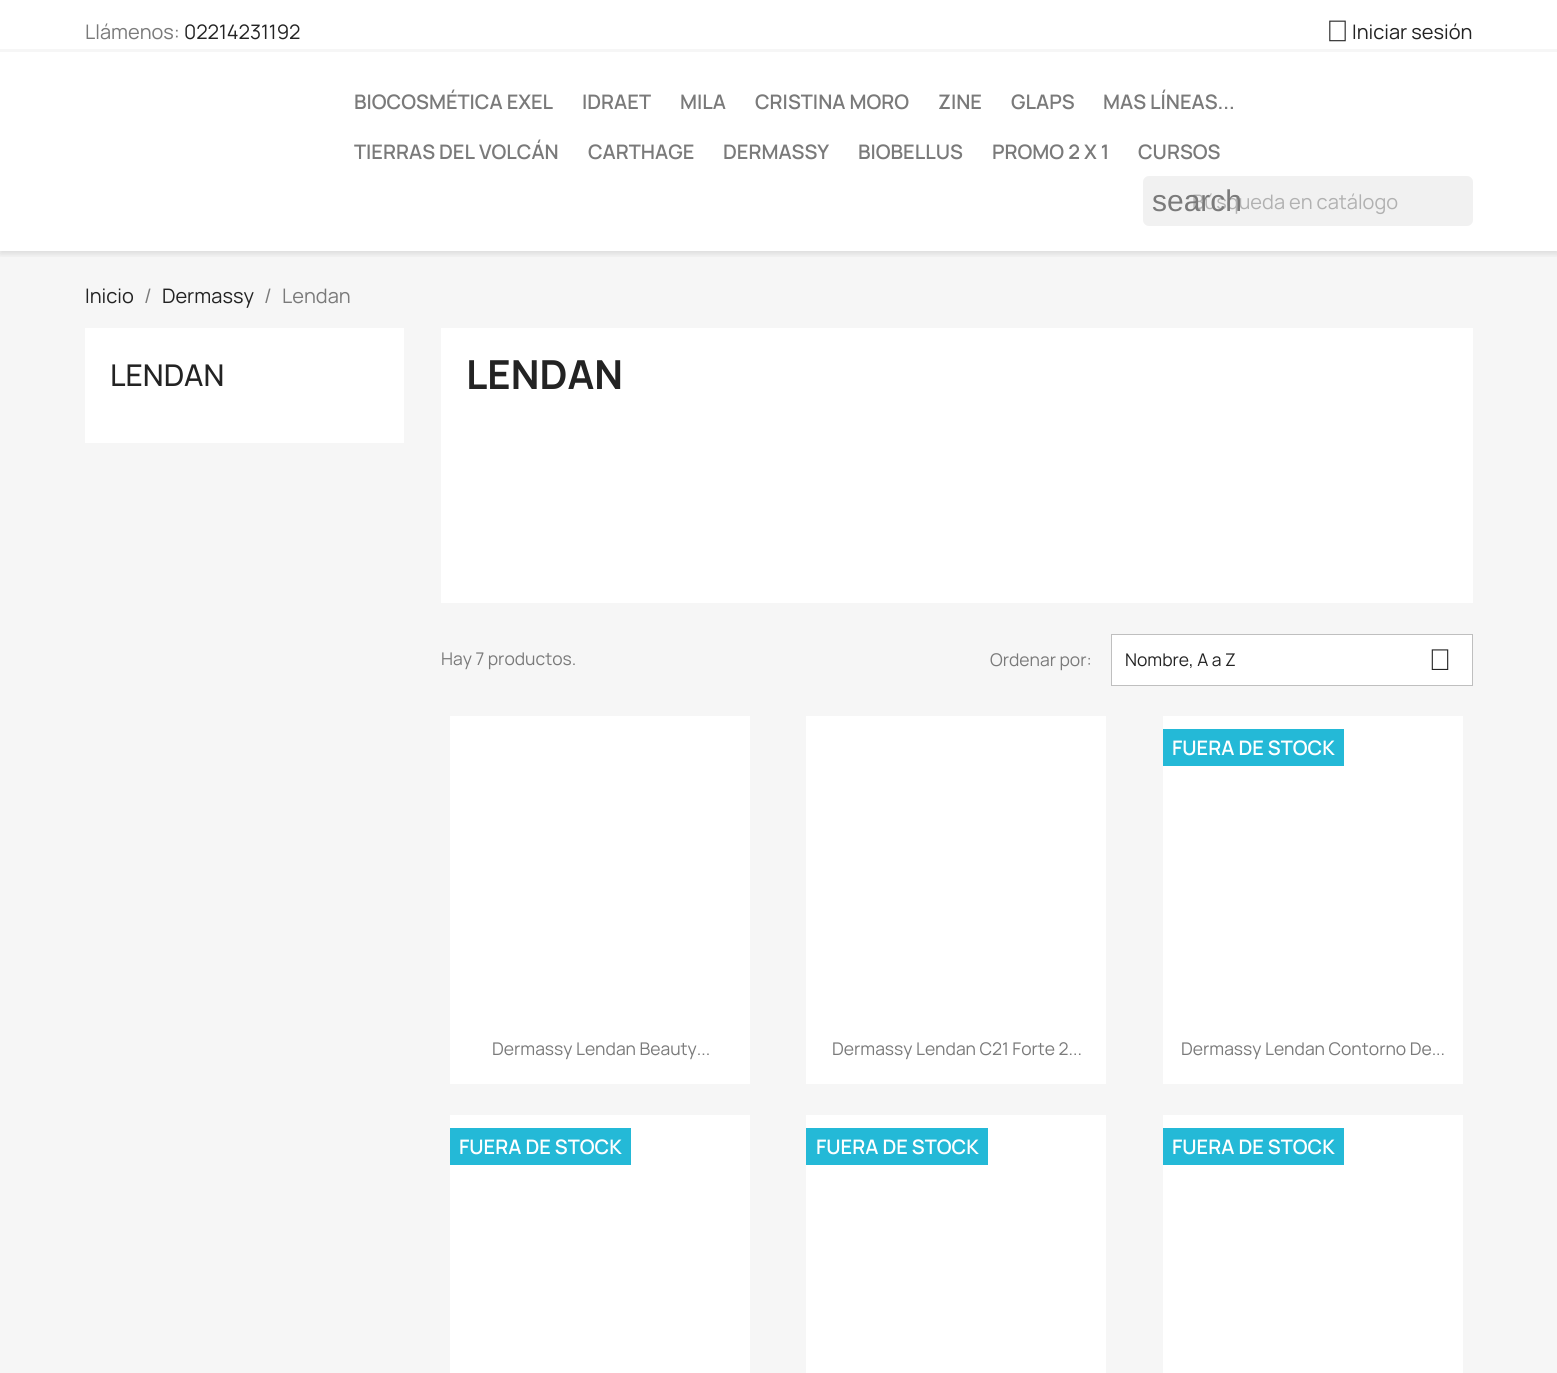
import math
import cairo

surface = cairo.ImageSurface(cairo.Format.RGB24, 1557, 1373)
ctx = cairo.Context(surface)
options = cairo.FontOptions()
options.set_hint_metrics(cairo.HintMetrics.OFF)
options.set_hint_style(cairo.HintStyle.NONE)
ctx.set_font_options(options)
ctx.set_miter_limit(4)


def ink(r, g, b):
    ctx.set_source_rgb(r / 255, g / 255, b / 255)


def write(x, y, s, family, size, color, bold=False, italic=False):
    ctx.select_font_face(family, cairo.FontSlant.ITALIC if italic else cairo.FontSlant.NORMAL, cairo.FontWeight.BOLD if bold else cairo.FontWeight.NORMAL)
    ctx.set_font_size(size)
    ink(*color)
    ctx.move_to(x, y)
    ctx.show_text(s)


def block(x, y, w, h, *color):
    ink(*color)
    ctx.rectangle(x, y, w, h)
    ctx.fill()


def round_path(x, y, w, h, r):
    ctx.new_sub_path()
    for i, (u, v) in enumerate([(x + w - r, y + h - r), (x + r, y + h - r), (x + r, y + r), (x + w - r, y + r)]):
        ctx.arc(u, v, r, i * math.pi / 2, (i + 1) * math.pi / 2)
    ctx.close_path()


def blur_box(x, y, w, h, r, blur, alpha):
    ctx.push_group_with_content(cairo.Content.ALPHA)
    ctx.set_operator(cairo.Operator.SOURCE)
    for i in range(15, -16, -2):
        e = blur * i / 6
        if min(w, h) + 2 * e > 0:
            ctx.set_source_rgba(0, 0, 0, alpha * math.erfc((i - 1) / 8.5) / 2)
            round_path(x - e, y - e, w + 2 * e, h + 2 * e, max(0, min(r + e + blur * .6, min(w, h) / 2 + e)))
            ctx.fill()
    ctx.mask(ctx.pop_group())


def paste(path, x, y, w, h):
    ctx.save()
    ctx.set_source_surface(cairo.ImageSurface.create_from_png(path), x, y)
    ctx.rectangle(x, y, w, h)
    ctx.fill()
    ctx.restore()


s1 = dict(family="Manrope", size=20, color=(122, 122, 122))
s2 = dict(family="Manrope", size=20, color=(35, 35, 35))
s3 = dict(family="Manrope SemiBold", size=20, color=(122, 122, 122))
s4 = dict(family="Manrope", size=20, color=(177, 177, 177))
s5 = dict(family="Liberation Sans", size=30, color=(122, 122, 122))
s6 = dict(family="Manrope Medium", size=30, color=(35, 35, 35))
s7 = dict(family="Manrope", size=40, color=(35, 35, 35), bold=True)
s8 = dict(family="Manrope", size=17.5, color=(122, 122, 122))
s9 = dict(family="Manrope", size=17.5, color=(35, 35, 35))
s10 = dict(family="Manrope SemiBold", size=20, color=(255, 255, 255))

ink(255, 255, 255)
ctx.paint()
block(0, 251, 1557, 1122, 246, 246, 246)
ctx.save()
ctx.rectangle(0, 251, 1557, 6)
ctx.clip()
ink(0, 0, 0)
blur_box(0, 3, 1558, 251, 0, 3, 0.11)
ctx.restore()
block(0, 49, 1557, 3, 246, 246, 246)
write(85, 39, "Llámenos:", **s1)
write(184, 39, "02214231192", **s2)
paste("pic1.png", 1329, 20, 17, 22)
write(1352, 39, "Iniciar sesión", **s2)
write(354, 109, "BIOCOSMÉTICA EXEL", **s3)
write(582, 109, "IDRAET", **s3)
write(680, 109, "MILA", **s3)
write(755, 109, "CRISTINA MORO", **s3)
write(938, 109, "ZINE", **s3)
write(1011, 109, "GLAPS", **s3)
write(1103, 109, "MAS LÍNEAS...", **s3)
write(354, 159, "TIERRAS DEL VOLCÁN", **s3)
write(588, 159, "CARTHAGE", **s3)
write(723, 159, "DERMASSY", **s3)
write(858, 159, "BIOBELLUS", **s3)
write(992, 159, "PROMO 2 X 1", **s3)
write(1138, 159, "CURSOS", **s3)
ink(241, 241, 241)
round_path(1143, 176, 330, 50, 6)
ctx.fill()
write(1192, 209, "Búsqueda en catálogo", **s4)
write(1152, 211, "search", **s5)
write(85, 303, "Inicio", **s2)
write(144, 303, "/", **s1)
write(162, 303, "Dermassy", **s2)
write(264, 303, "/", **s1)
write(282, 303, "Lendan", **s1)
block(85, 328, 319, 115, 255, 255, 255)
write(110, 386, "LENDAN", **s6)
block(441, 328, 1032, 275, 255, 255, 255)
write(466, 389, "LENDAN", **s7)
write(441, 665, "Hay 7 productos.", **s8)
write(990, 666, "Ordenar por:", **s8)
ink(255, 255, 255)
ctx.rectangle(1111.5, 634.5, 361, 51)
ctx.fill_preserve()
ink(191, 191, 191)
ctx.set_line_width(1)
ctx.stroke()
write(1125, 666, "Nombre, A a Z", **s9)
paste("pic2.png", 1431, 649, 18, 21)
block(450, 716, 300, 368, 255, 255, 255)
write(492, 1055, "Dermassy Lendan Beauty...", **s8)
block(806, 716, 300, 368, 255, 255, 255)
write(832, 1055, "Dermassy Lendan C21 Forte 2...", **s8)
block(1163, 716, 300, 368, 255, 255, 255)
block(1163, 729, 181, 37, 36, 185, 215)
write(1172, 755, "FUERA DE STOCK", **s10)
write(1181, 1055, "Dermassy Lendan Contorno De...", **s8)
block(450, 1115, 300, 258, 255, 255, 255)
block(450, 1128, 181, 37, 36, 185, 215)
write(459, 1154, "FUERA DE STOCK", **s10)
block(806, 1115, 300, 258, 255, 255, 255)
block(806, 1128, 182, 37, 36, 185, 215)
write(816, 1154, "FUERA DE STOCK", **s10)
block(1163, 1115, 300, 258, 255, 255, 255)
block(1163, 1128, 181, 37, 36, 185, 215)
write(1172, 1154, "FUERA DE STOCK", **s10)
surface.write_to_png("screenshot.png")
